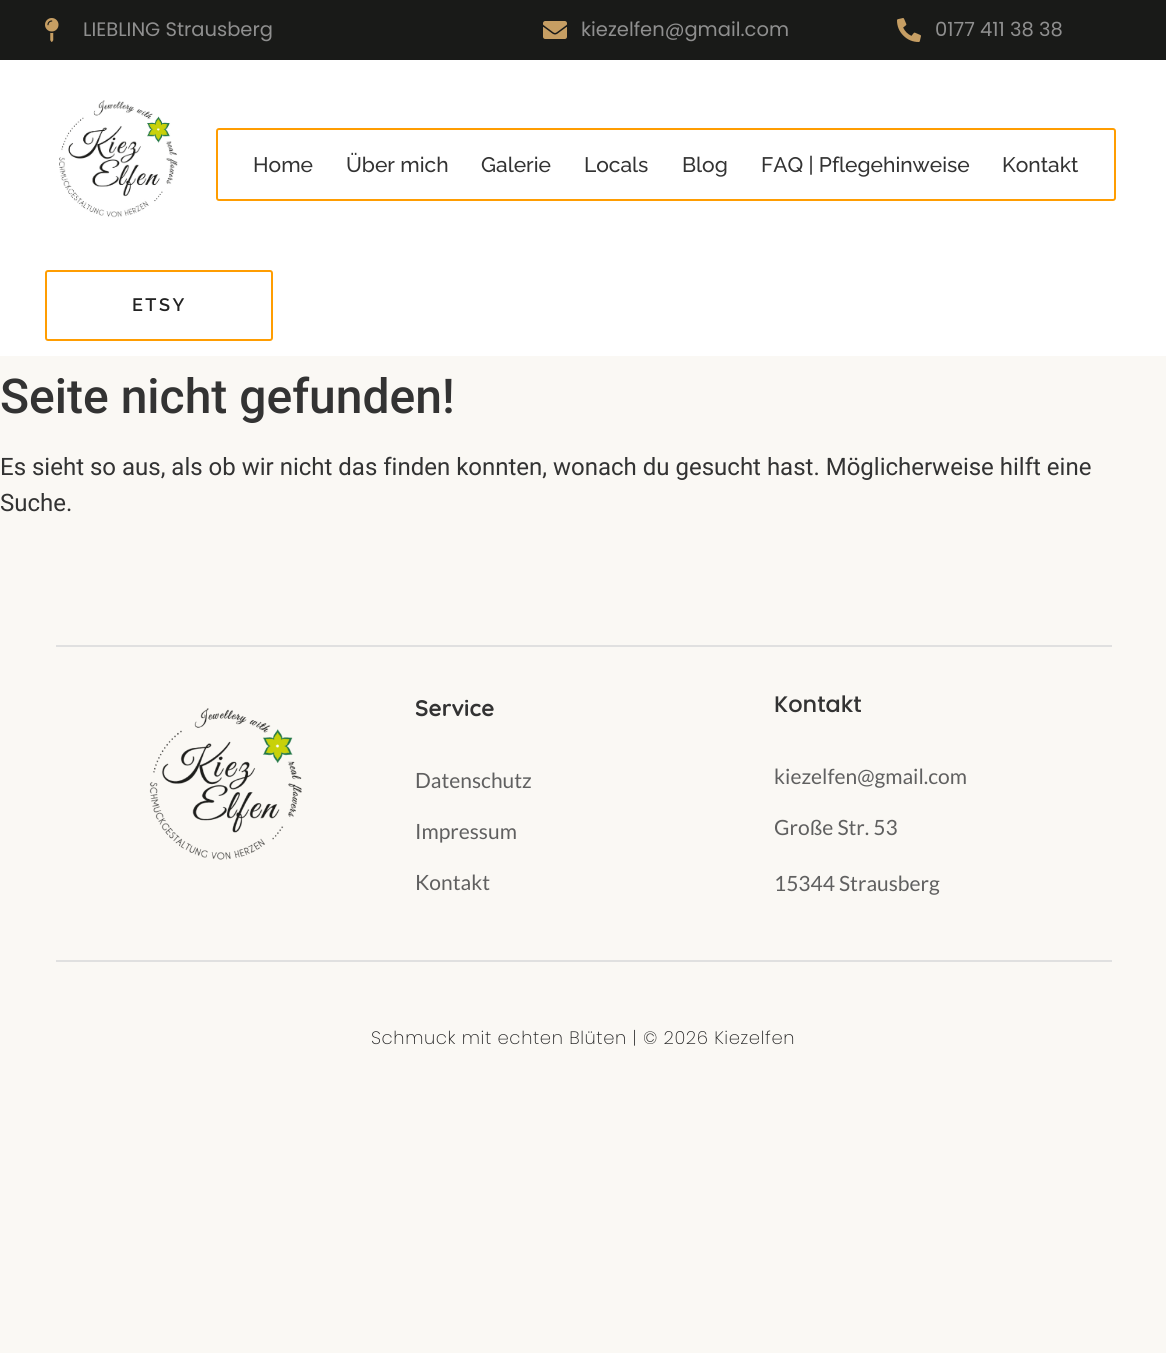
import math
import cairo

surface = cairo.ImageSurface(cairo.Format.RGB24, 1166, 1353)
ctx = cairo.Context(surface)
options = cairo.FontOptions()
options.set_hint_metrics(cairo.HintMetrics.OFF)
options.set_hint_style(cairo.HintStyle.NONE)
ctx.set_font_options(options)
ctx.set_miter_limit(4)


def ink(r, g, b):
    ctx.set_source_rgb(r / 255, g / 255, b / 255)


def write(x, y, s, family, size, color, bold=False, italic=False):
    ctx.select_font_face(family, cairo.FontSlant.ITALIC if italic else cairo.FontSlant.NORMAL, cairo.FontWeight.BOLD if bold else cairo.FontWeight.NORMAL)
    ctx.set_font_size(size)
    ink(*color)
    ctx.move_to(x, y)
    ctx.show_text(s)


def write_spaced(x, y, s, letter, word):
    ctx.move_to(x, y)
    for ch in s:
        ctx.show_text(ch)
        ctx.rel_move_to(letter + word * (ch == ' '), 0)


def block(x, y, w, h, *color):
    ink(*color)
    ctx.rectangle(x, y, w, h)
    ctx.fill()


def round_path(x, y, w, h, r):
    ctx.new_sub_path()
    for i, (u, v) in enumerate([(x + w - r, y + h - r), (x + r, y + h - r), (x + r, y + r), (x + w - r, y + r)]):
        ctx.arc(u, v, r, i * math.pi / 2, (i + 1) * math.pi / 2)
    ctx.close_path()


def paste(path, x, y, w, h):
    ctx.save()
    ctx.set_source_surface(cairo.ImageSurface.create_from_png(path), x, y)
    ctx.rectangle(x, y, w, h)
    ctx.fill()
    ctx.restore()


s1 = dict(family="Poppins", size=19.5, color=(143, 143, 143))
s2 = dict(family="Raleway Medium", size=21, color=(51, 51, 51))
s3 = dict(family="Roboto Medium", size=48, color=(51, 51, 51))
s4 = dict(family="Roboto", size=24, color=(51, 51, 51))
s5 = dict(family="Quicksand", size=22.5, color=(51, 51, 51), bold=True)
s6 = dict(family="Lato", size=21, color=(96, 96, 96))
s7 = dict(family="Poppins Medium", size=22.5, color=(51, 51, 51))

ink(250, 248, 244)
ctx.paint()
block(0, 0, 1166, 60, 25, 26, 24)
paste("pic1.png", 45, 18, 14, 24)
write(83, 36, "LIEBLING Strausberg", **s1)
paste("pic2.png", 543, 21, 24, 18)
write(581, 36, "kiezelfen@gmail.com", **s1)
paste("pic3.png", 897, 18, 24, 24)
write(935, 36, "0177 411 38 38", **s1)
block(0, 60, 1166, 296, 255, 255, 255)
paste("pic4.png", 59, 100, 119, 118)
round_path(217, 129, 898, 71, 2)
ink(255, 157, 1)
ctx.stroke()
write(253, 172, "Home", **s2)
write(346, 172, "Über mich", **s2)
write(481, 172, "Galerie", **s2)
write(584, 172, "Locals", **s2)
write(682, 172, "Blog", **s2)
write(761, 172, "FAQ | Pflegehinweise", **s2)
write(1002, 172, "Kontakt", **s2)
round_path(46, 271, 226, 69, 2)
ink(255, 157, 1)
ctx.stroke()
ctx.select_font_face("Raleway SemiBold")
ctx.set_font_size(18)
ink(34, 34, 34)
write_spaced(132, 311, "ETSY", 2.5, 0)
write(0, 413, "Seite nicht gefunden!", **s3)
write(0, 475, "Es sieht so aus, als ob wir nicht das finden konnten, wonach du gesucht hast. Möglicherweise hilft eine", **s4)
write(0, 511, "Suche.", **s4)
block(56, 645, 1056, 2, 224, 224, 224)
paste("pic5.png", 149, 708, 153, 152)
write(415, 716, "Service", **s5)
write(415, 788, "Datenschutz", **s6)
write(415, 839, "Impressum", **s6)
write(415, 890, "Kontakt", **s6)
write(774, 712, "Kontakt", **s7)
write(774, 784, "kiezelfen@gmail.com", **s6)
write(774, 835, "Große Str. 53", **s6)
write(774, 891, "15344 Strausberg", **s6)
block(56, 960, 1056, 2, 224, 224, 224)
ctx.select_font_face("Poppins ExtraLight")
ctx.set_font_size(18)
ink(34, 34, 34)
write_spaced(371, 1044, "Schmuck mit echten Blüten | © 2026 Kiezelfen", 0.6, 0)
surface.write_to_png("screenshot.png")
